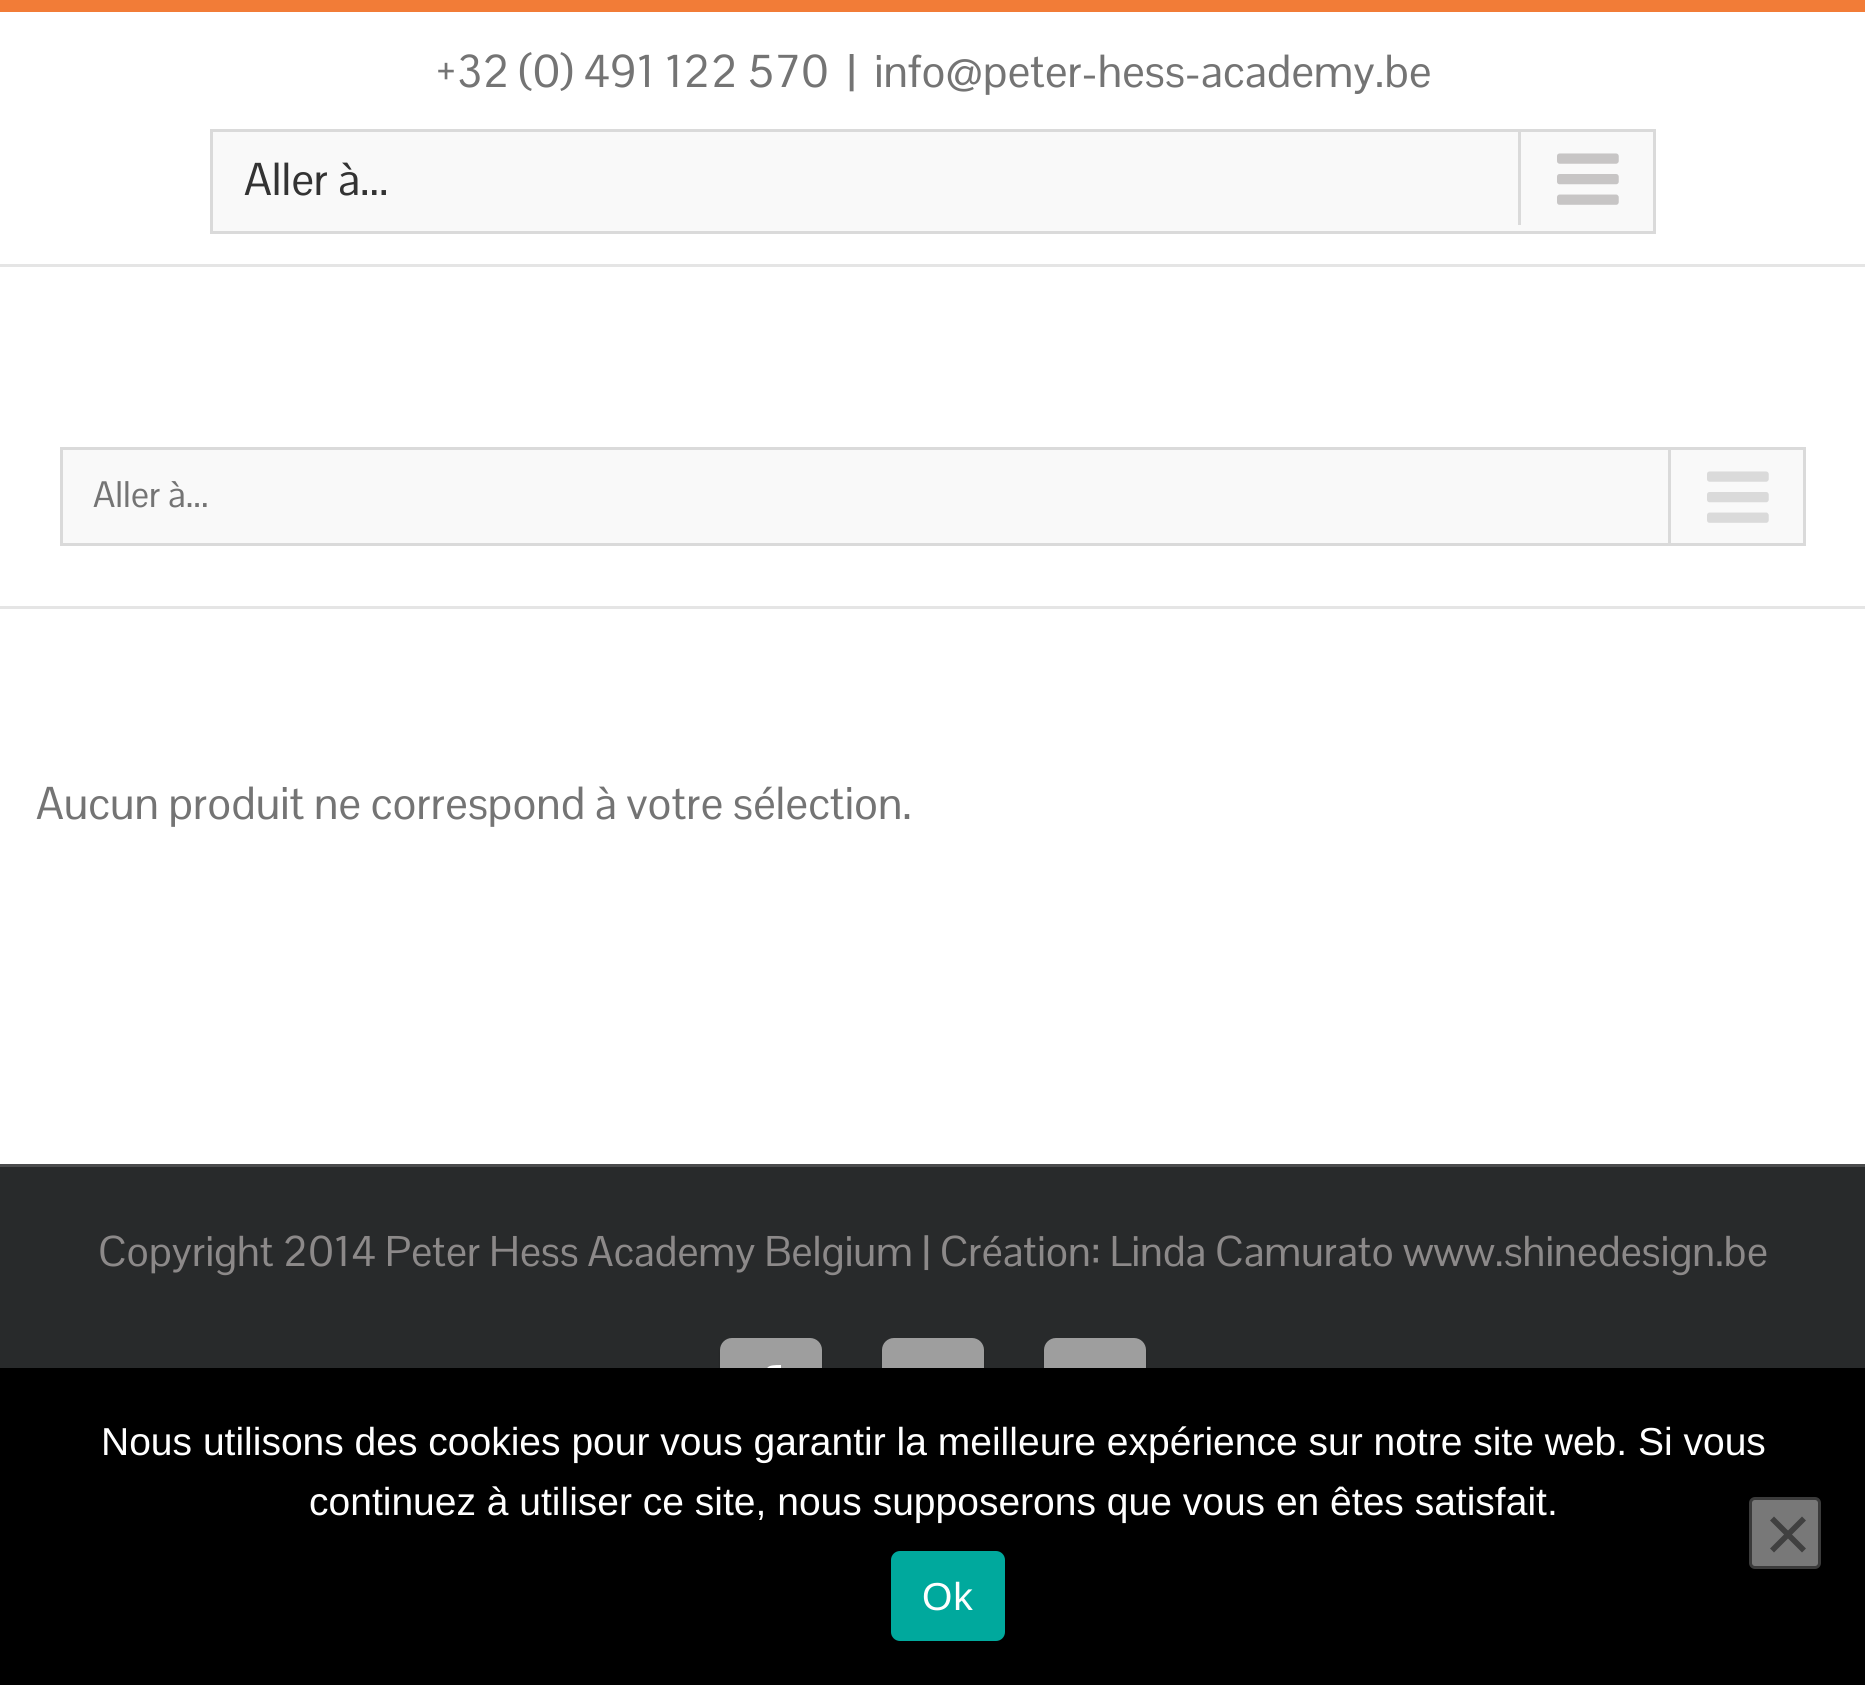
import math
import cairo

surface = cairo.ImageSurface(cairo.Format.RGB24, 1865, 1685)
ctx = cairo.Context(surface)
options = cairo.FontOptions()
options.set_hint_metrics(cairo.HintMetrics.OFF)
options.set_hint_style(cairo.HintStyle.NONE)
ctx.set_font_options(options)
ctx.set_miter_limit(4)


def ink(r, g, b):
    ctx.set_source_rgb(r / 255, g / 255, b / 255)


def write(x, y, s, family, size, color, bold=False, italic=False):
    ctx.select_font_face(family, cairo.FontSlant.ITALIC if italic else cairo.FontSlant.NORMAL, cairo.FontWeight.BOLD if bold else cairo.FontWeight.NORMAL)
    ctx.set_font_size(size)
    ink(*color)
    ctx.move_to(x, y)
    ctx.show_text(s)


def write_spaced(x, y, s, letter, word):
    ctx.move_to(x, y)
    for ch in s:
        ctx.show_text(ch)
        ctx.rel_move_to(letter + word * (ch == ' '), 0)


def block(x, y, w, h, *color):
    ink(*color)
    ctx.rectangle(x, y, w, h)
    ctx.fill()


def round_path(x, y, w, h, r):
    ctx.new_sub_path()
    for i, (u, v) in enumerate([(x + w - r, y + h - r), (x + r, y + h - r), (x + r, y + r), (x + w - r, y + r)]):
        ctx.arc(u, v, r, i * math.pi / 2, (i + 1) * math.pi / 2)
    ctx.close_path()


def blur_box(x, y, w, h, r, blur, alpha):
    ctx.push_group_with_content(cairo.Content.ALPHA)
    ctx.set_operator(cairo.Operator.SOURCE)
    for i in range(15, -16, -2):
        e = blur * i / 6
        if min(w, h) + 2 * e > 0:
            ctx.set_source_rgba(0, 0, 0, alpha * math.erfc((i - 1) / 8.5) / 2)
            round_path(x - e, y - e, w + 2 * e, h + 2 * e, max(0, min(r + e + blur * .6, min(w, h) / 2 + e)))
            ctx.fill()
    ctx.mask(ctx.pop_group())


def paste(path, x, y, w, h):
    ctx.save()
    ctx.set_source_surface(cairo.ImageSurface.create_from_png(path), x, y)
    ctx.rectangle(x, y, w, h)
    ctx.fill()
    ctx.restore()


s1 = dict(family="Pontano Sans", size=45, color=(116, 116, 116))
s2 = dict(family="Pontano Sans", size=45, color=(51, 51, 51))
s3 = dict(family="Pontano Sans", size=36, color=(116, 116, 116))
s4 = dict(family="Pontano Sans", size=42, color=(140, 137, 137))
s5 = dict(family="Liberation Sans", size=39, color=(255, 255, 255))

ink(255, 255, 255)
ctx.paint()
block(0, 0, 1865, 12, 242, 124, 55)
block(0, 264, 1865, 3, 229, 229, 229)
write(435, 87, "+32 (0) 491 122 570", **s1)
write(847, 87, "|", **s1)
write(874, 87, "info@peter-hess-academy.be", **s1)
ink(249, 249, 249)
ctx.rectangle(211.5, 130.5, 1443, 102)
ctx.fill_preserve()
ink(218, 218, 218)
ctx.set_line_width(3)
ctx.stroke()
write(244, 195, "Aller à...", **s2)
block(1518, 132, 3, 93, 218, 218, 218)
paste("pic1.png", 1557, 153, 62, 52)
block(0, 606, 1865, 3, 229, 229, 229)
ink(249, 249, 249)
ctx.rectangle(61.5, 448.5, 1743, 96)
ctx.fill_preserve()
ink(218, 218, 218)
ctx.stroke()
write(93, 507, "Aller à...", **s3)
block(1668, 450, 3, 93, 218, 218, 218)
paste("pic2.png", 1707, 471, 62, 52)
write(36, 819, "Aucun produit ne correspond à votre sélection.", **s1)
block(0, 1167, 1865, 201, 40, 42, 43)
block(0, 1164, 1865, 3, 75, 76, 77)
write(98, 1266, "Copyright 2014 Peter Hess Academy Belgium | Création: Linda Camurato www.shinedesign.be", **s4)
ink(0, 0, 0)
blur_box(720, 1341, 102, 102, 12, 1.5, 0.2)
ink(158, 158, 158)
round_path(721.5, 1339.5, 99, 99, 10.5)
ctx.fill_preserve()
ctx.stroke()
ink(255, 255, 255)
ctx.new_path()
ctx.move_to(774, 1413)
ctx.line_to(765, 1413)
ctx.line_to(765, 1389)
ctx.line_to(759, 1389)
ctx.line_to(759, 1381)
ctx.line_to(765, 1381)
ctx.curve_to(765, 1366, 767, 1365, 781, 1365)
ctx.line_to(781, 1373)
ctx.curve_to(773, 1373, 774, 1373, 774, 1381)
ctx.line_to(781, 1381)
ctx.line_to(781, 1389)
ctx.line_to(774, 1389)
ctx.close_path()
ctx.fill()
ink(0, 0, 0)
blur_box(882, 1341, 102, 102, 12, 1.5, 0.2)
ink(158, 158, 158)
round_path(883.5, 1339.5, 99, 99, 10.5)
ctx.fill_preserve()
ctx.stroke()
ink(0, 0, 0)
blur_box(1044, 1341, 102, 102, 12, 1.5, 0.2)
ink(158, 158, 158)
round_path(1045.5, 1339.5, 99, 99, 10.5)
ctx.fill_preserve()
ctx.stroke()
block(0, 1368, 1865, 317, 0, 0, 0)
write(101, 1455, "Nous utilisons des cookies pour vous garantir la meilleure expérience sur notre site web. Si vous", **s5)
write(309, 1515, "continuez à utiliser ce site, nous supposerons que vous en êtes satisfait.", **s5)
ink(120, 120, 120)
round_path(1750.5, 1498.5, 69, 69, 4.5)
ctx.fill_preserve()
ink(59, 59, 59)
ctx.stroke()
ink(64, 64, 64)
ctx.new_path()
ctx.move_to(1802, 1516.5)
ctx.line_to(1806, 1520.5)
ctx.line_to(1774, 1552.5)
ctx.line_to(1770, 1548.5)
ctx.close_path()
ctx.fill()
ctx.new_path()
ctx.move_to(1770, 1520.5)
ctx.line_to(1774, 1516.5)
ctx.line_to(1806, 1548.5)
ctx.line_to(1802, 1552.5)
ctx.close_path()
ctx.fill()
ink(0, 169, 157)
round_path(891, 1551, 114, 90, 9)
ctx.fill()
ink(255, 255, 255)
write_spaced(922, 1610, "Ok", 1, 0)
surface.write_to_png("screenshot.png")
